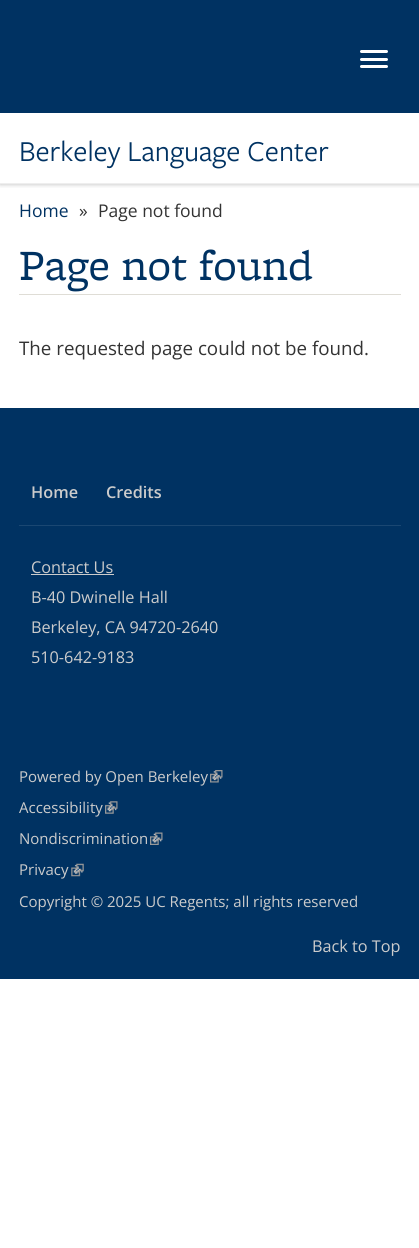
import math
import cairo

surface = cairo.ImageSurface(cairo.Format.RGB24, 419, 1248)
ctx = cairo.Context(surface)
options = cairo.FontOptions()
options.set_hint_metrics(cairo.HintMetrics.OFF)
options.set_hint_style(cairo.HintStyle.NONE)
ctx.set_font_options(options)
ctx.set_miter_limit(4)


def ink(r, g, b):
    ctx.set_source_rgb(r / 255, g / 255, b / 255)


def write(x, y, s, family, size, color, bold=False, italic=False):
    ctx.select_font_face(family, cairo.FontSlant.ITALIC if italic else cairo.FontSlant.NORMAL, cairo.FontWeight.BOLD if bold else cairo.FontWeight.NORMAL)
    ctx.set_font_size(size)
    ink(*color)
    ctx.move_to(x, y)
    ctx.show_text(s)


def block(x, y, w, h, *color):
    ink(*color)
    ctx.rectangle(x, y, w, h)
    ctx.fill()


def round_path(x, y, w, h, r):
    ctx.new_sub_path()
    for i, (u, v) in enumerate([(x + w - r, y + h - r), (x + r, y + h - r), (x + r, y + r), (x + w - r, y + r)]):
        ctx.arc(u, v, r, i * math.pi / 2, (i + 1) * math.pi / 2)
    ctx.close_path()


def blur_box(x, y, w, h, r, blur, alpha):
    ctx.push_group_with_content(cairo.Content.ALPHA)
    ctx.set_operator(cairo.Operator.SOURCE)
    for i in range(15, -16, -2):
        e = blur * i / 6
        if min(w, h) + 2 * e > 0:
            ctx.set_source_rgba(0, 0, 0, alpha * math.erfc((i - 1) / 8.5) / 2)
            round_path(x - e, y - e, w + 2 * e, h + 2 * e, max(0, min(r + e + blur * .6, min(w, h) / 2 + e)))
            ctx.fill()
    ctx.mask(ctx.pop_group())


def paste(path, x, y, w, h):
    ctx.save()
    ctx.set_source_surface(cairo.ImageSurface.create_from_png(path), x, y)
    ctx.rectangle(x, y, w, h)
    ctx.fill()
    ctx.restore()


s1 = dict(family="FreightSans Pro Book", size=30, color=(0, 50, 98))
s2 = dict(family="Open Sans", size=17.5, color=(0, 50, 98))
s3 = dict(family="Open Sans", size=17.5, color=(51, 51, 51))
s4 = dict(family="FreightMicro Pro", size=45, color=(0, 50, 98))
s5 = dict(family="Open Sans", size=18.75, color=(51, 51, 51))
s6 = dict(family="Open Sans SemiBold", size=16.25, color=(204, 204, 204))
s7 = dict(family="Open Sans", size=16.25, color=(204, 204, 204))
s8 = dict(family="Open Sans", size=15, color=(204, 204, 204))

ink(255, 255, 255)
ctx.paint()
ctx.save()
ctx.rectangle(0, 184, 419, 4)
ctx.clip()
ink(0, 0, 0)
blur_box(0, 1, 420, 184, 0, 2, 0.2)
ctx.restore()
block(0, 0, 419, 113, 0, 50, 98)
ink(255, 255, 255)
round_path(360, 50, 28, 3, 1.5)
ctx.fill()
round_path(360, 58, 28, 3, 1.5)
ctx.fill()
round_path(360, 65, 28, 3, 1.5)
ctx.fill()
block(0, 183, 419, 1, 238, 238, 238)
write(19, 161, "Berkeley Language Center", **s1)
write(19, 217, "Home", **s2)
write(79, 217, "»", **s3)
write(98, 217, "Page not found", **s3)
block(19, 294, 382, 1, 223, 221, 214)
write(19, 280, "Page not found", **s4)
write(19, 355, "The requested page could not be found.", **s5)
block(0, 408, 419, 571, 0, 50, 98)
block(19, 525, 382, 1, 26, 71, 114)
write(31, 498, "Home", **s6)
write(106, 498, "Credits", **s6)
write(31, 573, "Contact Us", **s7)
block(31, 574, 83, 1, 204, 204, 204)
write(31, 603, "B-40 Dwinelle Hall", **s7)
write(31, 633, "Berkeley, CA 94720-2640", **s7)
write(31, 663, "510-642-9183", **s7)
write(19, 782, "Powered by Open Berkeley", **s8)
paste("pic1.png", 210, 770, 13, 13)
write(19, 813, "Accessibility", **s8)
paste("pic2.png", 105, 801, 13, 13)
write(19, 844, "Nondiscrimination", **s8)
paste("pic3.png", 150, 832, 13, 13)
write(19, 875, "Privacy", **s8)
paste("pic4.png", 71, 863, 13, 14)
write(19, 907, "Copyright © 2025 UC Regents; all rights reserved", **s8)
write(312, 952, "Back to Top", **s7)
surface.write_to_png("screenshot.png")
